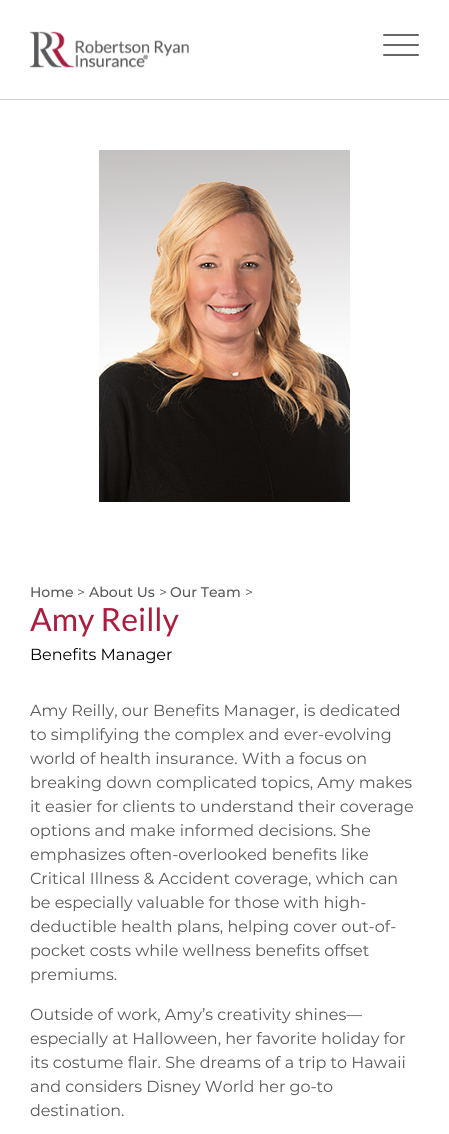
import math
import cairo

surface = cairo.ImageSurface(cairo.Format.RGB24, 449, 1134)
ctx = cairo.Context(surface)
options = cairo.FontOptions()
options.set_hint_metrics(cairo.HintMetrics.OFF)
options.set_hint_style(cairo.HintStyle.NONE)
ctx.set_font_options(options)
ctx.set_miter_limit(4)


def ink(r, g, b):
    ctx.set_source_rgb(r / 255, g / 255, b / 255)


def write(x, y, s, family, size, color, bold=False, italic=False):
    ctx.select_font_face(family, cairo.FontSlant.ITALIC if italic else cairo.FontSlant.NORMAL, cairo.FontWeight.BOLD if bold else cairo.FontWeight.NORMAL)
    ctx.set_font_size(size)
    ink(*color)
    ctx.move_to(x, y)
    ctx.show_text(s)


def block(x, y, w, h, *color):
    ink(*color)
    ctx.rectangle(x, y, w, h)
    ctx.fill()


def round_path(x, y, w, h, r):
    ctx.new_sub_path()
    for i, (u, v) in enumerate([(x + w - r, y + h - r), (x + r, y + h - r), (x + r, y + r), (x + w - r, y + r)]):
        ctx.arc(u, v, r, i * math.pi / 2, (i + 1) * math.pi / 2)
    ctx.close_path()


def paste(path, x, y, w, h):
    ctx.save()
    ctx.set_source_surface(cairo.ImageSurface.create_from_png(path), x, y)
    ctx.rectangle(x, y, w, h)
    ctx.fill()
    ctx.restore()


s1 = dict(family="Montserrat Medium", size=14, color=(88, 89, 91))
s2 = dict(family="Montserrat", size=14, color=(88, 89, 91))
s3 = dict(family="Lato", size=32, color=(171, 29, 63))
s4 = dict(family="Montserrat", size=16, color=(0, 0, 0))
s5 = dict(family="Montserrat", size=16, color=(88, 89, 91))

ink(255, 255, 255)
ctx.paint()
block(0, 99, 449, 1, 204, 204, 204)
paste("pic1.png", 30, 31, 160, 37)
ink(102, 102, 102)
round_path(383, 44, 36, 2, 1)
ctx.fill()
round_path(383, 34, 36, 2, 1)
ctx.fill()
round_path(383, 54, 36, 2, 1)
ctx.fill()
paste("pic2.png", 99, 150, 251, 352)
write(30, 597, "Home", **s1)
write(77, 597, ">", **s2)
write(89, 597, "About Us", **s1)
write(159, 597, ">", **s2)
write(170, 597, "Our Team", **s1)
write(245, 597, ">", **s2)
write(30, 631, "Amy Reilly", **s3)
write(30, 660, "Benefits Manager", **s4)
write(30, 716, "Amy Reilly, our Benefits Manager, is dedicated", **s5)
write(30, 740, "to simplifying the complex and ever-evolving", **s5)
write(30, 764, "world of health insurance. With a focus on", **s5)
write(30, 788, "breaking down complicated topics, Amy makes", **s5)
write(30, 812, "it easier for clients to understand their coverage", **s5)
write(30, 836, "options and make informed decisions. She", **s5)
write(30, 860, "emphasizes often-overlooked benefits like", **s5)
write(30, 884, "Critical Illness & Accident coverage, which can", **s5)
write(30, 908, "be especially valuable for those with high-", **s5)
write(30, 932, "deductible health plans, helping cover out-of-", **s5)
write(30, 956, "pocket costs while wellness benefits offset", **s5)
write(30, 980, "premiums.", **s5)
write(30, 1020, "Outside of work, Amy’s creativity shines—", **s5)
write(30, 1044, "especially at Halloween, her favorite holiday for", **s5)
write(30, 1068, "its costume flair. She dreams of a trip to Hawaii", **s5)
write(30, 1092, "and considers Disney World her go-to", **s5)
write(30, 1116, "destination.", **s5)
surface.write_to_png("screenshot.png")
